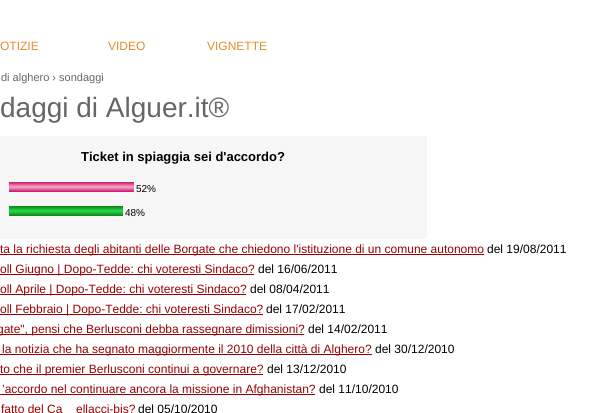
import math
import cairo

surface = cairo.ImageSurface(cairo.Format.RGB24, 607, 413)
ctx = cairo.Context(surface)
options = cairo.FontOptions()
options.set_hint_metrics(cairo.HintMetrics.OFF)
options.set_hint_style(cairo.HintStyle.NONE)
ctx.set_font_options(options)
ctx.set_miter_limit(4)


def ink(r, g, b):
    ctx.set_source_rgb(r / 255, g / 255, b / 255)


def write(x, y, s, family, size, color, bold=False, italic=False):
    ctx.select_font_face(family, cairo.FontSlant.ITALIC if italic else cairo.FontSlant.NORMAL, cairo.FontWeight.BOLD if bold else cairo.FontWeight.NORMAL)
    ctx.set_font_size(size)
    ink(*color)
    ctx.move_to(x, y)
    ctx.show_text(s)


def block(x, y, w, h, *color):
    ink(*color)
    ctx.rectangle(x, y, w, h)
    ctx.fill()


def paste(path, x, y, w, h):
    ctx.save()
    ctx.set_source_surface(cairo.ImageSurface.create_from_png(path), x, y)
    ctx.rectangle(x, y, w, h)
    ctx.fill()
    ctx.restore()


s1 = dict(family="Liberation Sans", size=12, color=(230, 139, 44))
s2 = dict(family="Liberation Sans", size=11, color=(102, 102, 102))
s3 = dict(family="Liberation Sans", size=28, color=(102, 102, 102))
s4 = dict(family="Liberation Sans", size=13, color=(0, 0, 0), bold=True)
s5 = dict(family="Liberation Sans", size=10, color=(0, 0, 0))
s6 = dict(family="Liberation Sans", size=12, color=(153, 0, 0))
s7 = dict(family="Liberation Sans", size=12, color=(0, 0, 0))

ink(255, 255, 255)
ctx.paint()
write(0, 50, "OTIZIE", **s1)
write(108, 50, "VIDEO", **s1)
write(207, 50, "VIGNETTE", **s1)
write(1, 81, "di alghero › sondaggi", **s2)
write(0, 117, "daggi di Alguer.it®", **s3)
block(0, 136, 427, 103, 246, 246, 246)
write(81, 161, "Ticket in spiaggia sei d'accordo?", **s4)
paste("pic1.png", 9, 182, 125, 10)
write(136, 192, "52%", **s5)
paste("pic2.png", 9, 206, 114, 10)
write(125, 216, "48%", **s5)
block(0, 254, 484, 1, 153, 0, 0)
write(0, 253, "ta la richiesta degli abitanti delle Borgate che chiedono l'istituzione di un comune autonomo", **s6)
write(487, 253, "del 19/08/2011", **s7)
block(0, 274, 254, 1, 153, 0, 0)
write(0, 273, "oll Giugno | Dopo-Tedde: chi voteresti Sindaco?", **s6)
write(258, 273, "del 16/06/2011", **s7)
block(0, 294, 246, 1, 153, 0, 0)
write(0, 293, "oll Aprile | Dopo-Tedde: chi voteresti Sindaco?", **s6)
write(250, 293, "del 08/04/2011", **s7)
block(0, 314, 263, 1, 153, 0, 0)
write(0, 313, "oll Febbraio | Dopo-Tedde: chi voteresti Sindaco?", **s6)
write(266, 313, "del 17/02/2011", **s7)
block(0, 334, 304, 1, 153, 0, 0)
write(-3, 333, "gate\", pensi che Berlusconi debba rassegnare dimissioni?", **s6)
write(308, 333, "del 14/02/2011", **s7)
block(0, 354, 372, 1, 153, 0, 0)
write(2, 353, "la notizia che ha segnato maggiormente il 2010 della città di Alghero?", **s6)
write(375, 353, "del 30/12/2010", **s7)
block(0, 374, 263, 1, 153, 0, 0)
write(0, 373, "to che il premier Berlusconi continui a governare?", **s6)
write(267, 373, "del 13/12/2010", **s7)
block(0, 394, 315, 1, 153, 0, 0)
write(2, 393, "’accordo nel continuare ancora la missione in Afghanistan?", **s6)
write(319, 393, "del 11/10/2010", **s7)
write(1, 413, "fatto del Ca", **s6)
write(76, 413, "ellacci-bis?", **s6)
write(138, 413, "del 05/10/2010", **s7)
surface.write_to_png("screenshot.png")
